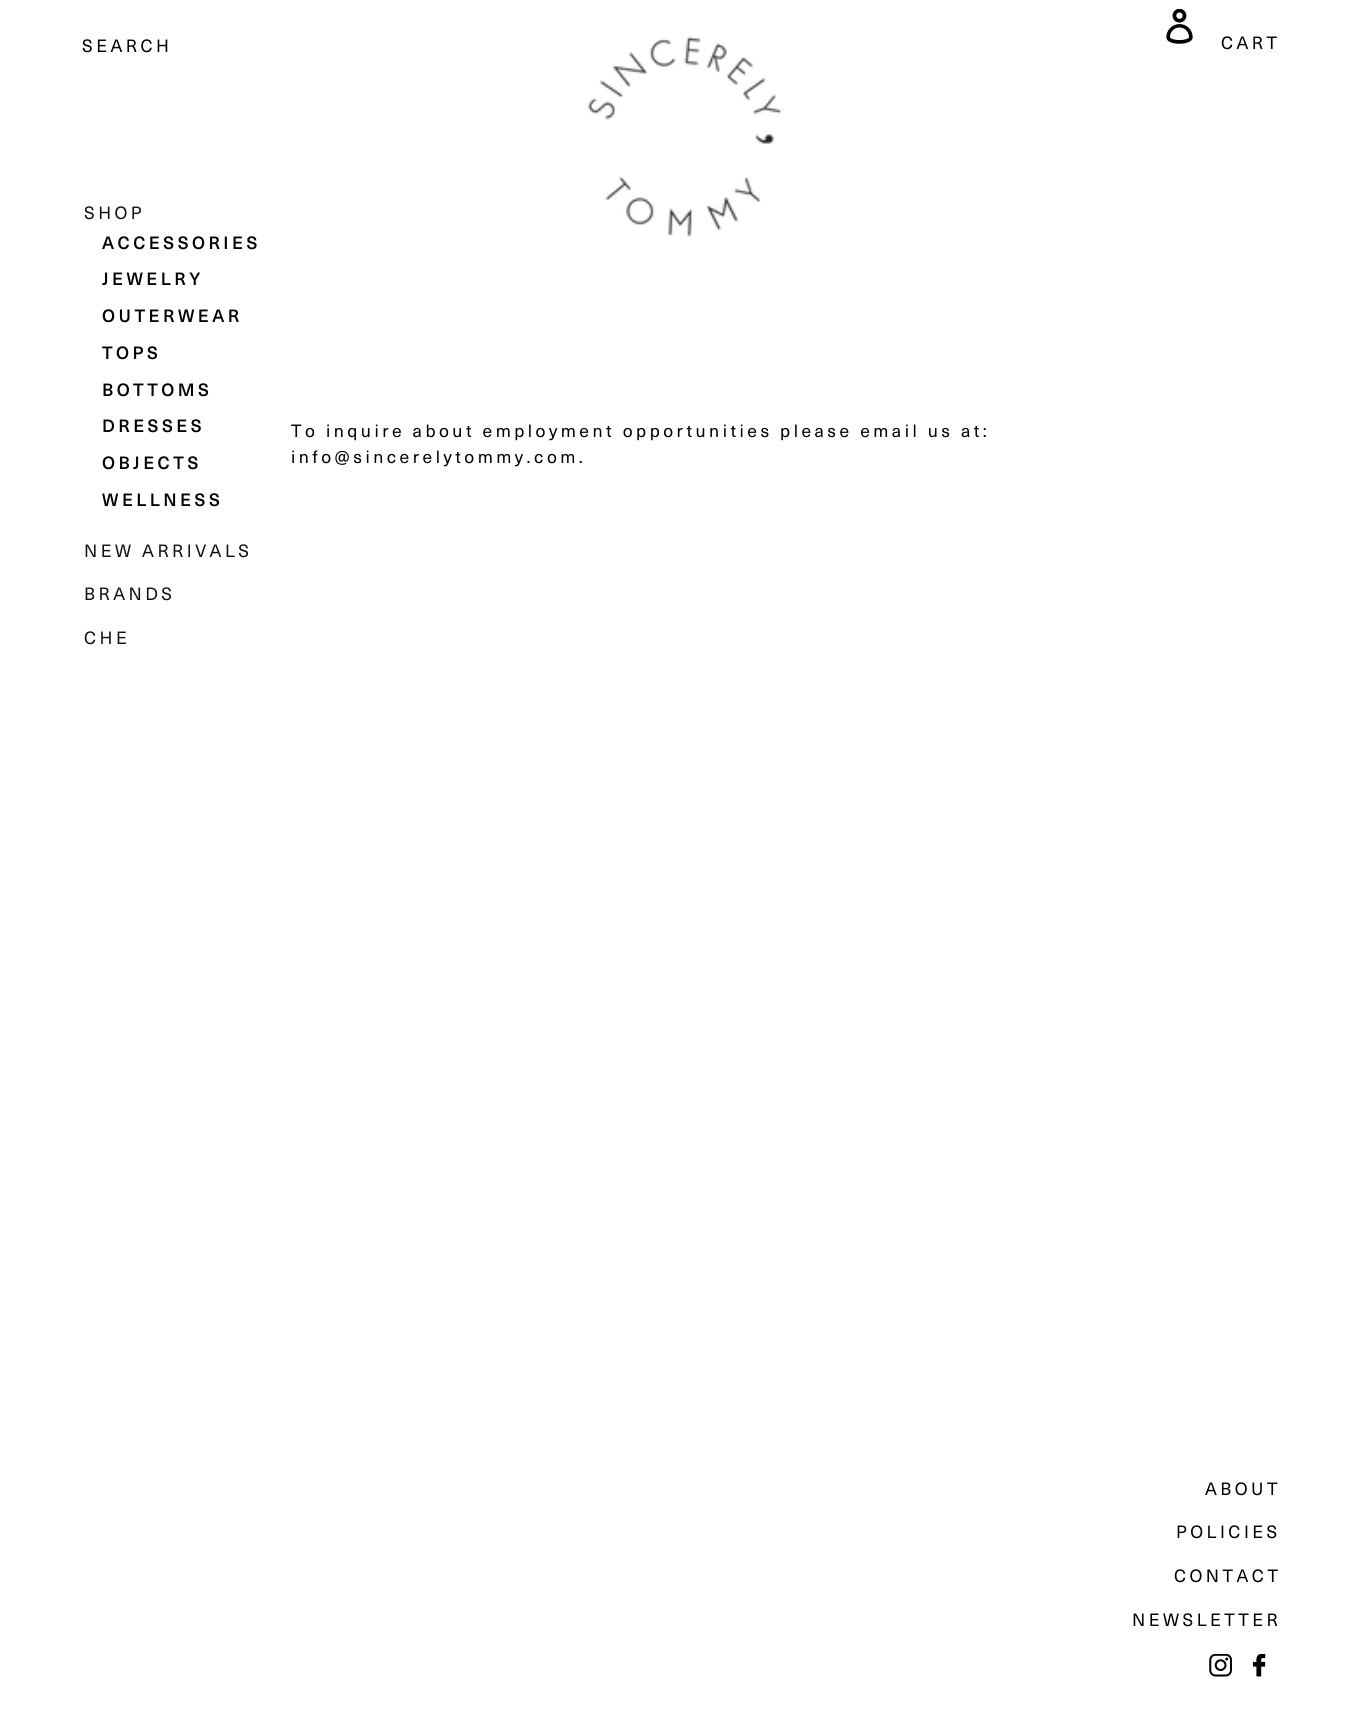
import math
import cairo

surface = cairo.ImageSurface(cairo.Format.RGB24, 1368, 1719)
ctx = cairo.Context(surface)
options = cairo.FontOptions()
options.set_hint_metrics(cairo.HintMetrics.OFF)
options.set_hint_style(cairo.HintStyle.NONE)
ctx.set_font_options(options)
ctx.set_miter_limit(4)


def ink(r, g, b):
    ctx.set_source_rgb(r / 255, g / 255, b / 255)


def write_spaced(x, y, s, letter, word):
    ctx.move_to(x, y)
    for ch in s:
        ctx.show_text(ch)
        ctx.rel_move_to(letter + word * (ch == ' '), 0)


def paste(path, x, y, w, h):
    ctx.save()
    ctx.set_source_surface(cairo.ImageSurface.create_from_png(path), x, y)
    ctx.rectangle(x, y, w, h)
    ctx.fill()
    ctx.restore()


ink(255, 255, 255)
ctx.paint()
ctx.select_font_face("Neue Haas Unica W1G")
ctx.set_font_size(17.5)
ink(0, 0, 0)
write_spaced(82, 52, "SEARCH", 3.5, 0)
ink(17, 17, 17)
write_spaced(84, 219, "SHOP", 3.5, 0)
ctx.select_font_face("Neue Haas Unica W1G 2")
ink(0, 0, 0)
write_spaced(102, 249, "ACCESSORIES", 3.5, 0)
write_spaced(102, 285, "JEWELRY", 3.5, 0)
write_spaced(102, 322, "OUTERWEAR", 3.5, 0)
write_spaced(102, 359, "TOPS", 3.5, 0)
write_spaced(102, 396, "BOTTOMS", 3.5, 0)
write_spaced(102, 432, "DRESSES", 3.5, 0)
write_spaced(102, 469, "OBJECTS", 3.5, 0)
write_spaced(102, 506, "WELLNESS", 3.5, 0)
ctx.select_font_face("Neue Haas Unica W1G")
ink(17, 17, 17)
write_spaced(84, 557, "NEW ARRIVALS", 3.5, 0)
write_spaced(84, 600, "BRANDS", 3.5, 0)
write_spaced(84, 644, "CHE", 3.5, 0)
paste("pic1.png", 587, 36, 194, 201)
paste("pic2.png", 1166, 9, 27, 35)
ink(0, 0, 0)
write_spaced(1221, 49, "CART", 3.5, 0)
write_spaced(291, 437, "To inquire about employment opportunities please email us at:", 3.5, 0)
write_spaced(291, 463, "info@sincerelytommy.com.", 3.5, 0)
write_spaced(1205, 1495, "ABOUT", 3.5, 0)
write_spaced(1176, 1538, "POLICIES", 3.5, 0)
write_spaced(1174, 1582, "CONTACT", 3.5, 0)
write_spaced(1132, 1626, "NEWSLETTER", 3.5, 0)
paste("pic3.png", 1209, 1654, 23, 23)
paste("pic4.png", 1253, 1654, 13, 23)
surface.write_to_png("screenshot.png")
